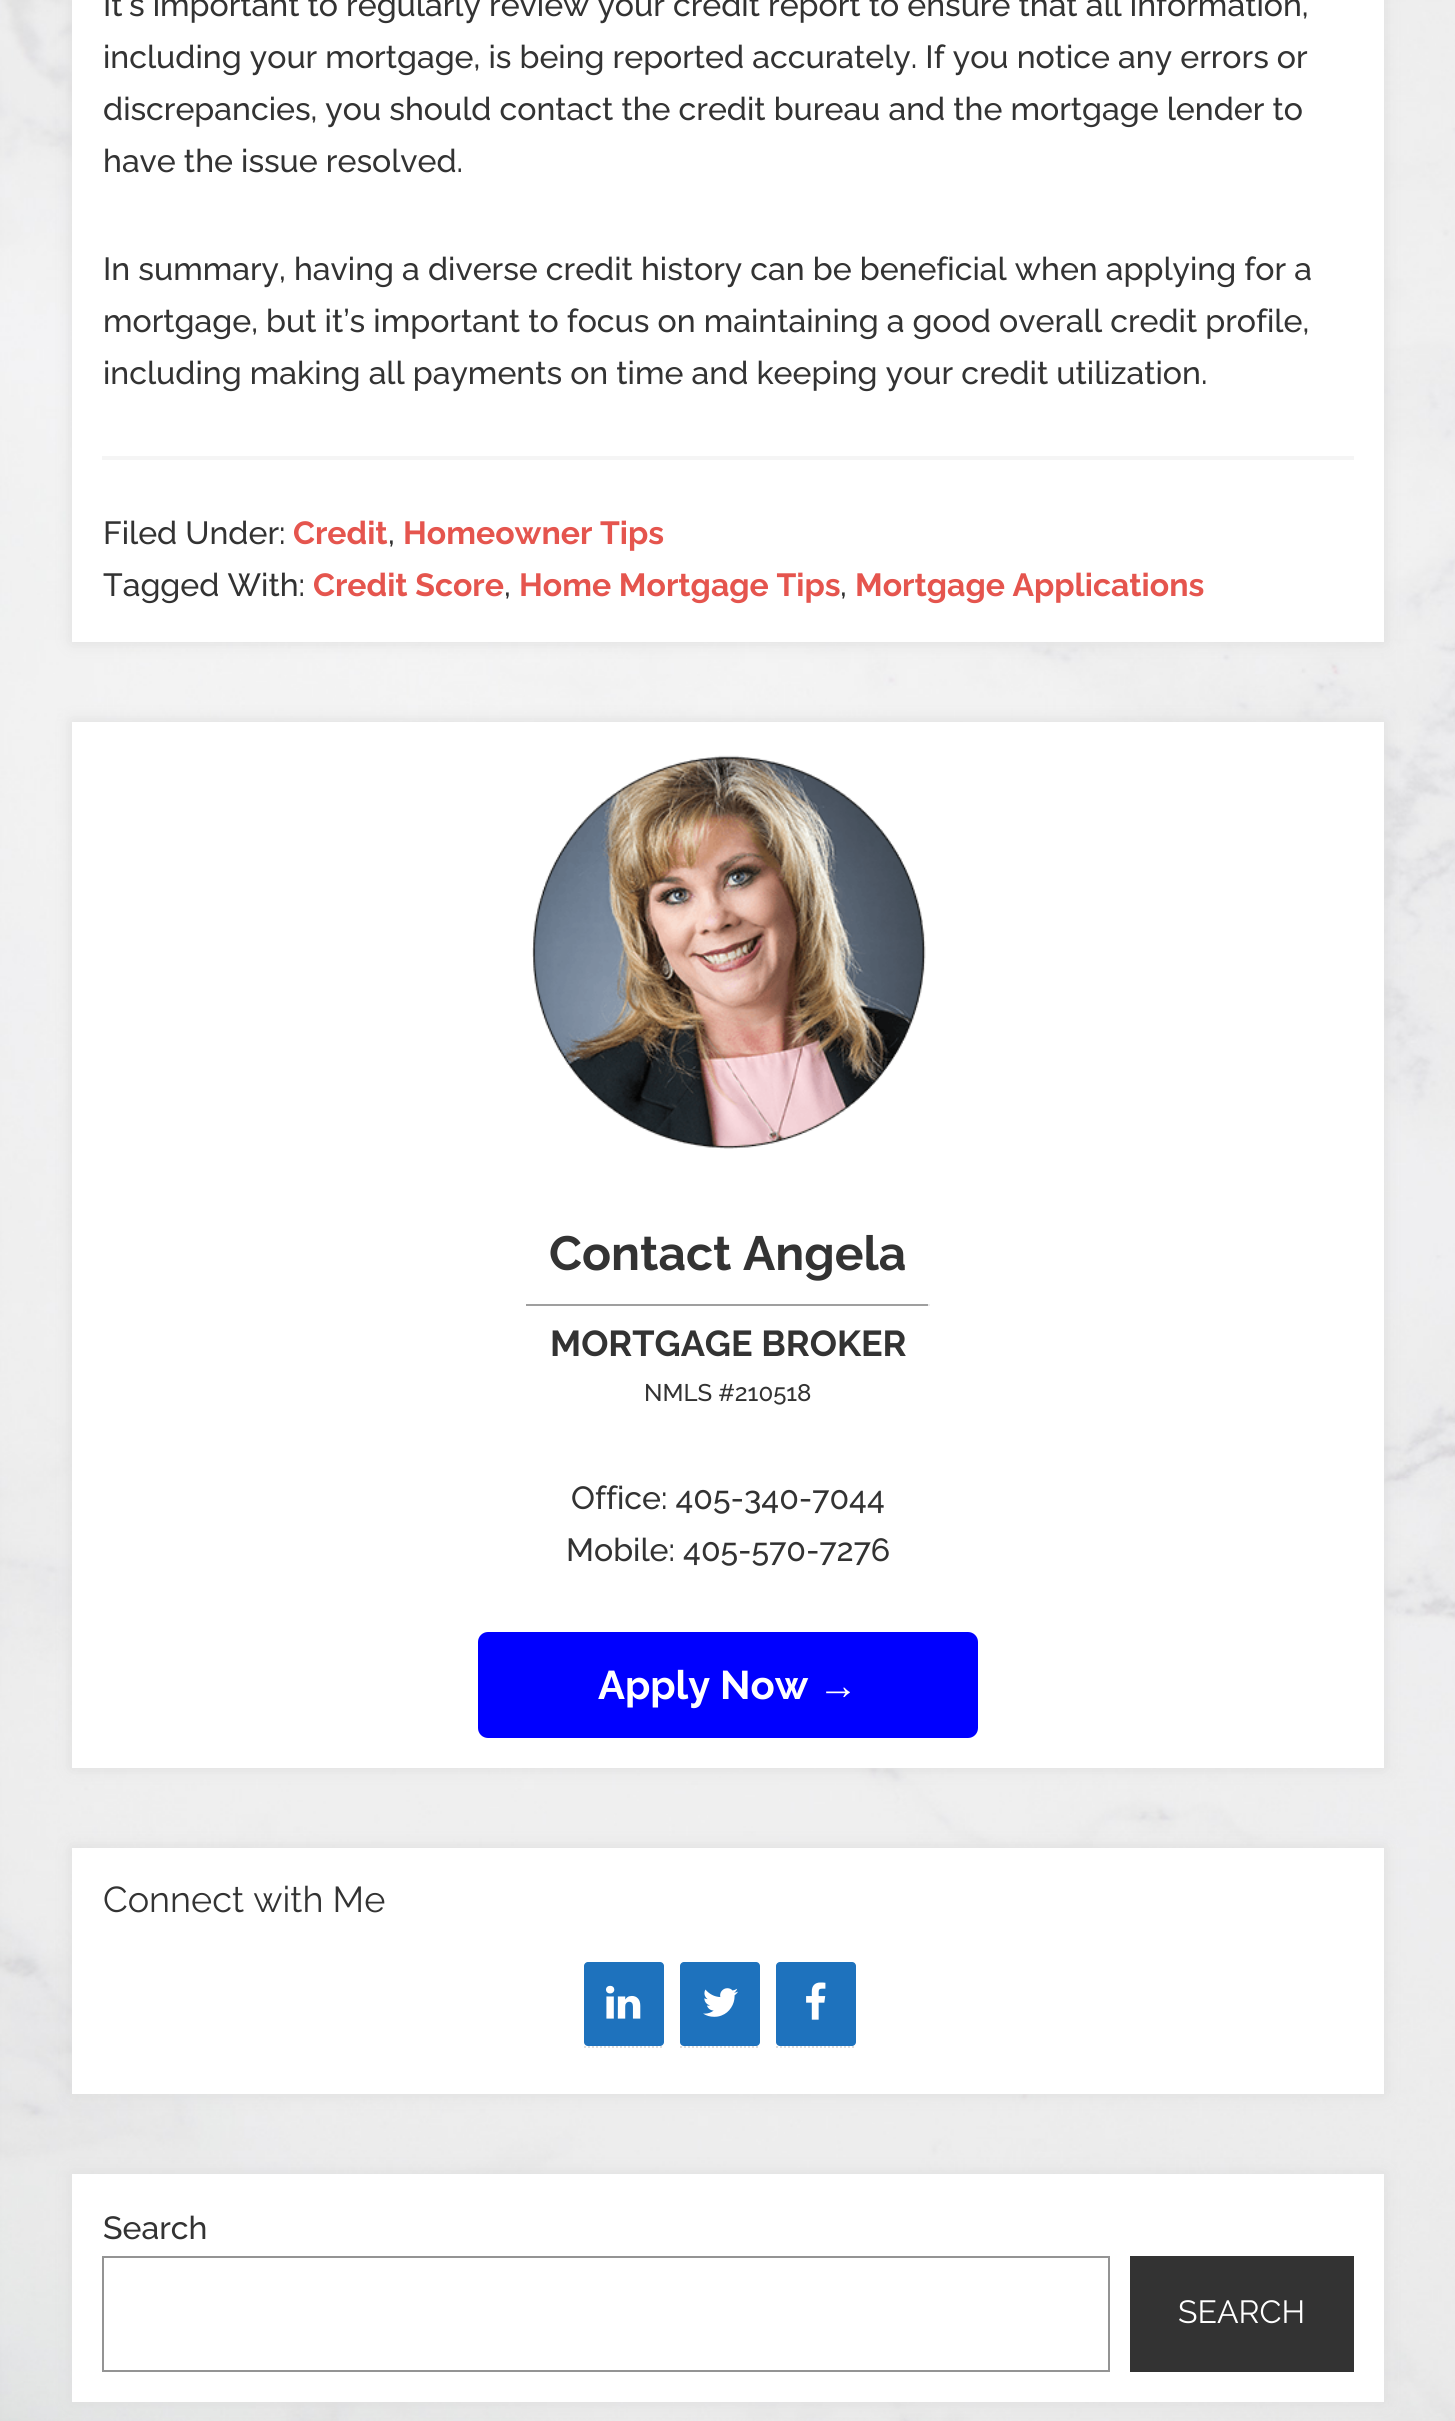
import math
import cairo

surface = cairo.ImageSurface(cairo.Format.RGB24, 1455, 2421)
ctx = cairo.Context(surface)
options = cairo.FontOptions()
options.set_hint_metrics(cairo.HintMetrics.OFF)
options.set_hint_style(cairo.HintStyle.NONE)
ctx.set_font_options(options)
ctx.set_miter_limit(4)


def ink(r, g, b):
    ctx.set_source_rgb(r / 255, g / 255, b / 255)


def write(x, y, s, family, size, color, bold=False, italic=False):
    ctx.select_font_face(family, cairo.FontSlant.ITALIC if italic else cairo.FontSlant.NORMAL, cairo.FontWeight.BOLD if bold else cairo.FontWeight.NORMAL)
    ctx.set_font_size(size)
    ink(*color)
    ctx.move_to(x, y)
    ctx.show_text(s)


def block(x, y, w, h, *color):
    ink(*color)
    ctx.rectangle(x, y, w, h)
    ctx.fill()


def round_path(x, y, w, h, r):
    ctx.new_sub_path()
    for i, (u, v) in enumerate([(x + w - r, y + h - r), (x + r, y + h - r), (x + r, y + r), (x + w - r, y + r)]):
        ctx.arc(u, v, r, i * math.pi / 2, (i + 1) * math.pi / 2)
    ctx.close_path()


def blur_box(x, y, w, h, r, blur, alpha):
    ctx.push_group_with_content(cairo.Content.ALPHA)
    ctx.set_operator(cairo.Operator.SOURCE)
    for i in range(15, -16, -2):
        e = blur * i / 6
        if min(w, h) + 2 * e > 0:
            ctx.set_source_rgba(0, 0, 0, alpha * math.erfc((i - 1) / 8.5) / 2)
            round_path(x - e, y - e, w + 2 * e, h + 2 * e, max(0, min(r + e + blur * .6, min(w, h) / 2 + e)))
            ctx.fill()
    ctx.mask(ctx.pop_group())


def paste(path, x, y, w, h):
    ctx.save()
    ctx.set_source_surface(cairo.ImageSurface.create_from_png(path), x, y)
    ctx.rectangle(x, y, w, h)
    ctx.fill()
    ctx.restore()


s1 = dict(family="Raleway Medium", size=32, color=(51, 51, 51))
s2 = dict(family="Raleway", size=32, color=(229, 85, 78), bold=True)
s3 = dict(family="Raleway", size=48, color=(51, 51, 51), bold=True)
s4 = dict(family="Raleway", size=36, color=(51, 51, 51), bold=True)
s5 = dict(family="Raleway Medium", size=24, color=(51, 51, 51))
s6 = dict(family="Raleway", size=40, color=(255, 255, 255), bold=True)
s7 = dict(family="Liberation Sans", size=40, color=(255, 255, 255), bold=True)
s8 = dict(family="Raleway", size=36, color=(51, 51, 51))
s9 = dict(family="Raleway", size=32, color=(255, 255, 255))

ink(255, 255, 255)
ctx.paint()
paste("pic1.png", 0, 0, 1455, 2421)
ink(221, 221, 221)
blur_box(72, -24, 1312, 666, 0, 8, 1)
block(72, 0, 1312, 642, 255, 255, 255)
write(103, 16, "It’s important to regularly review your credit report to ensure that all information,", **s1)
write(103, 68, "including your mortgage, is being reported accurately. If you notice any errors or", **s1)
write(103, 120, "discrepancies, you should contact the credit bureau and the mortgage lender to", **s1)
write(103, 172, "have the issue resolved.", **s1)
write(103, 280, "In summary, having a diverse credit history can be beneficial when applying for a", **s1)
write(103, 332, "mortgage, but it’s important to focus on maintaining a good overall credit profile,", **s1)
write(103, 384, "including making all payments on time and keeping your credit utilization.", **s1)
block(102, 456, 1252, 4, 245, 245, 245)
write(103, 544, "Filed Under:", **s1)
write(293, 544, "Credit", **s2)
write(388, 544, ",", **s1)
write(403, 544, "Homeowner Tips", **s2)
write(103, 596, "Tagged With:", **s1)
write(313, 596, "Credit Score", **s2)
write(504, 596, ",", **s1)
write(519, 596, "Home Mortgage Tips", **s2)
write(840, 596, ",", **s1)
write(855, 596, "Mortgage Applications", **s2)
ink(221, 221, 221)
blur_box(72, 722, 1312, 1046, 0, 8, 1)
block(72, 722, 1312, 1046, 255, 255, 255)
paste("pic2.png", 532, 755, 394, 394)
write(549, 1270, "Contact Angela", **s3)
block(526, 1304, 404, 2, 159, 159, 159)
block(928, 1304, 2, 2, 238, 238, 238)
write(550, 1356, "MORTGAGE BROKER", **s4)
write(644, 1401, "NMLS #210518", **s5)
write(571, 1509, "Office: 405-340-7044", **s1)
write(566, 1561, "Mobile: 405-570-7276", **s1)
ink(0, 0, 255)
round_path(478, 1632, 500, 106, 10)
ctx.fill()
write(598, 1699, "Apply Now", **s6)
write(818, 1699, "→", **s7)
ink(221, 221, 221)
blur_box(72, 1848, 1312, 246, 0, 8, 1)
block(72, 1848, 1312, 246, 255, 255, 255)
write(103, 1912, "Connect with Me", **s8)
ctx.new_path()
ctx.move_to(584, 2047)
ctx.line_to(664, 2047)
ink(221, 221, 221)
ctx.set_dash([2, 2])
ctx.stroke()
ink(30, 114, 189)
round_path(584, 1962, 80, 84, 4)
ctx.fill()
paste("pic3.png", 606, 1985, 35, 34)
ctx.new_path()
ctx.move_to(680, 2047)
ctx.line_to(760, 2047)
ink(221, 221, 221)
ctx.stroke()
ink(30, 114, 189)
round_path(680, 1962, 80, 84, 4)
ctx.fill()
paste("pic4.png", 703, 1988, 35, 29)
ctx.new_path()
ctx.move_to(776, 2047)
ctx.line_to(856, 2047)
ink(221, 221, 221)
ctx.stroke()
ink(30, 114, 189)
round_path(776, 1962, 80, 84, 4)
ctx.fill()
paste("pic5.png", 806, 1982, 20, 38)
ink(221, 221, 221)
blur_box(72, 2174, 1312, 228, 0, 8, 1)
block(72, 2174, 1312, 228, 255, 255, 255)
write(103, 2239, "Search", **s1)
ctx.rectangle(103, 2257, 1006, 114)
ink(148, 148, 148)
ctx.set_dash([])
ctx.stroke()
block(1130, 2256, 224, 116, 51, 51, 51)
write(1178, 2323, "SEARCH", **s9)
surface.write_to_png("screenshot.png")
